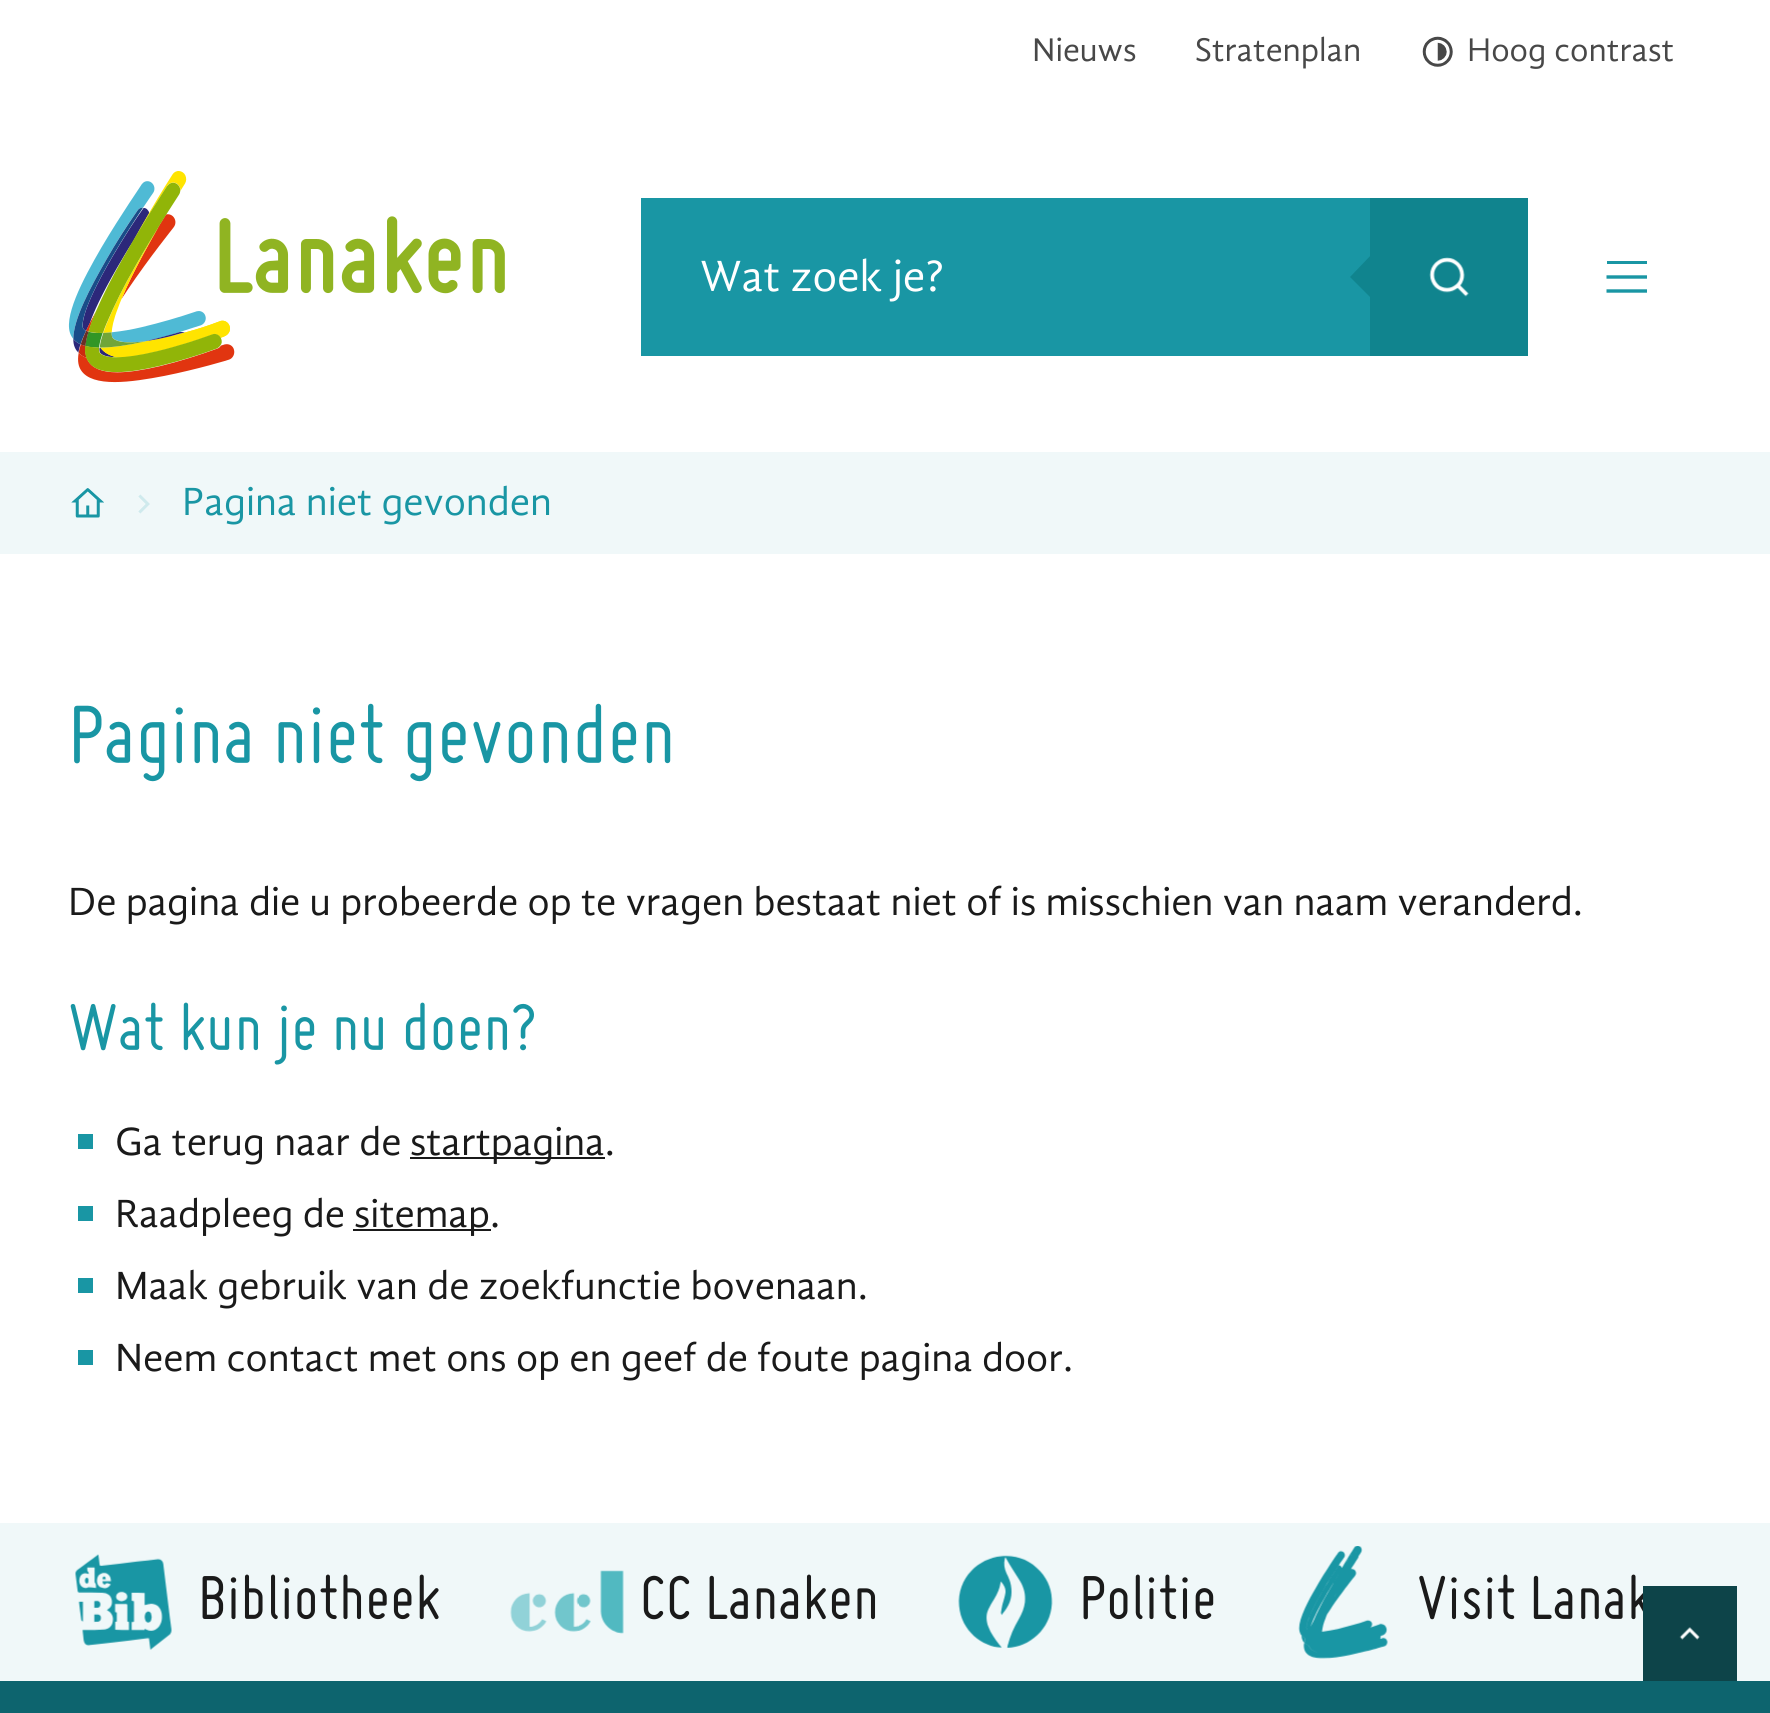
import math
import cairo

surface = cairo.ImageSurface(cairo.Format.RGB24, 1770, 1713)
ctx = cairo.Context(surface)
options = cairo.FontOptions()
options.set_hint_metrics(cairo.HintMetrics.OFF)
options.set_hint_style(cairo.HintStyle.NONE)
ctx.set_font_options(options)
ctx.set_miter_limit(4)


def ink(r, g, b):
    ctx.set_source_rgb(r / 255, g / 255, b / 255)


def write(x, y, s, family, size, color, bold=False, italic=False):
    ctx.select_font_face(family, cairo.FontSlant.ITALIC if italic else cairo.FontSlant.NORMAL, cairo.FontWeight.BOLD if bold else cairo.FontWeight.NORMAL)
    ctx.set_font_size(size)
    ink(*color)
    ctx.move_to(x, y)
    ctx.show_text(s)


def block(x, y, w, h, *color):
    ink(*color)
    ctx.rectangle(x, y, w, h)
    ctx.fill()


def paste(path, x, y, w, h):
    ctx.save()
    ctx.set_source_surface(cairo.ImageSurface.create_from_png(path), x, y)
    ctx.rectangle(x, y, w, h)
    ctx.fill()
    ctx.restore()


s1 = dict(family="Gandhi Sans", size=33.75, color=(72, 72, 72))
s2 = dict(family="Gandhi Sans", size=45, color=(255, 255, 255))
s3 = dict(family="Gandhi Sans", size=40.5, color=(25, 150, 164))
s4 = dict(family="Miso", size=90, color=(25, 150, 164))
s5 = dict(family="Gandhi Sans", size=40.5, color=(26, 26, 26))
s6 = dict(family="Miso", size=72, color=(25, 150, 164))
s7 = dict(family="Miso", size=67.5, color=(26, 26, 26))

ink(255, 255, 255)
ctx.paint()
write(1032, 61, "Nieuws", **s1)
write(1195, 61, "Stratenplan", **s1)
paste("pic1.png", 1422, 36, 31, 31)
write(1467, 61, "Hoog contrast", **s1)
paste("pic2.png", 68, 171, 437, 212)
block(641, 198, 729, 158, 25, 150, 164)
block(1370, 198, 158, 158, 16, 132, 142)
ctx.new_path()
ctx.move_to(1372, 254)
ctx.line_to(1372, 299)
ctx.line_to(1350, 277)
ctx.close_path()
ctx.fill()
paste("pic3.png", 1429, 257, 40, 40)
write(700, 291, "Wat zoek je?", **s2)
block(1607, 261, 40, 3, 25, 150, 164)
ctx.new_path()
ctx.move_to(1606.5, 277)
ctx.line_to(1647, 277)
ctx.move_to(1606.5, 291)
ctx.line_to(1647, 291)
ctx.set_line_width(3.4)
ctx.stroke()
block(0, 452, 1770, 102, 240, 248, 249)
paste("pic4.png", 71, 488, 33, 30)
paste("pic5.png", 138, 494, 12, 20)
write(182, 515, "Pagina niet gevonden", **s3)
write(68, 763, "Pagina niet gevonden", **s4)
write(68, 915, "De pagina die u probeerde op te vragen bestaat niet of is misschien van naam veranderd.", **s5)
write(68, 1050, "Wat kun je nu doen?", **s6)
block(78, 1134, 15, 15, 25, 150, 164)
write(115, 1155, "Ga terug naar de", **s5)
block(410, 1157, 195, 2, 26, 26, 26)
write(410, 1155, "startpagina.", **s5)
block(78, 1206, 15, 15, 25, 150, 164)
write(115, 1227, "Raadpleeg de", **s5)
block(353, 1229, 138, 2, 26, 26, 26)
write(354, 1227, "sitemap.", **s5)
block(78, 1278, 15, 15, 25, 150, 164)
write(115, 1299, "Maak gebruik van de zoekfunctie bovenaan.", **s5)
block(78, 1350, 15, 15, 25, 150, 164)
write(115, 1371, "Neem contact met ons op en geef de foute pagina door.", **s5)
block(0, 1523, 1770, 158, 240, 248, 249)
paste("pic6.png", 75, 1554, 97, 96)
write(198, 1619, "Bibliotheek", **s7)
paste("pic7.png", 510, 1570, 114, 64)
write(640, 1619, "CC Lanaken", **s7)
paste("pic8.png", 958, 1555, 95, 93)
write(1079, 1619, "Politie", **s7)
paste("pic9.png", 1298, 1546, 90, 113)
write(1417, 1619, "Visit Lanak", **s7)
block(0, 1681, 1770, 32, 13, 100, 110)
block(1643, 1586, 94, 95, 13, 68, 73)
paste("pic10.png", 1679, 1627, 21, 13)
surface.write_to_png("screenshot.png")
